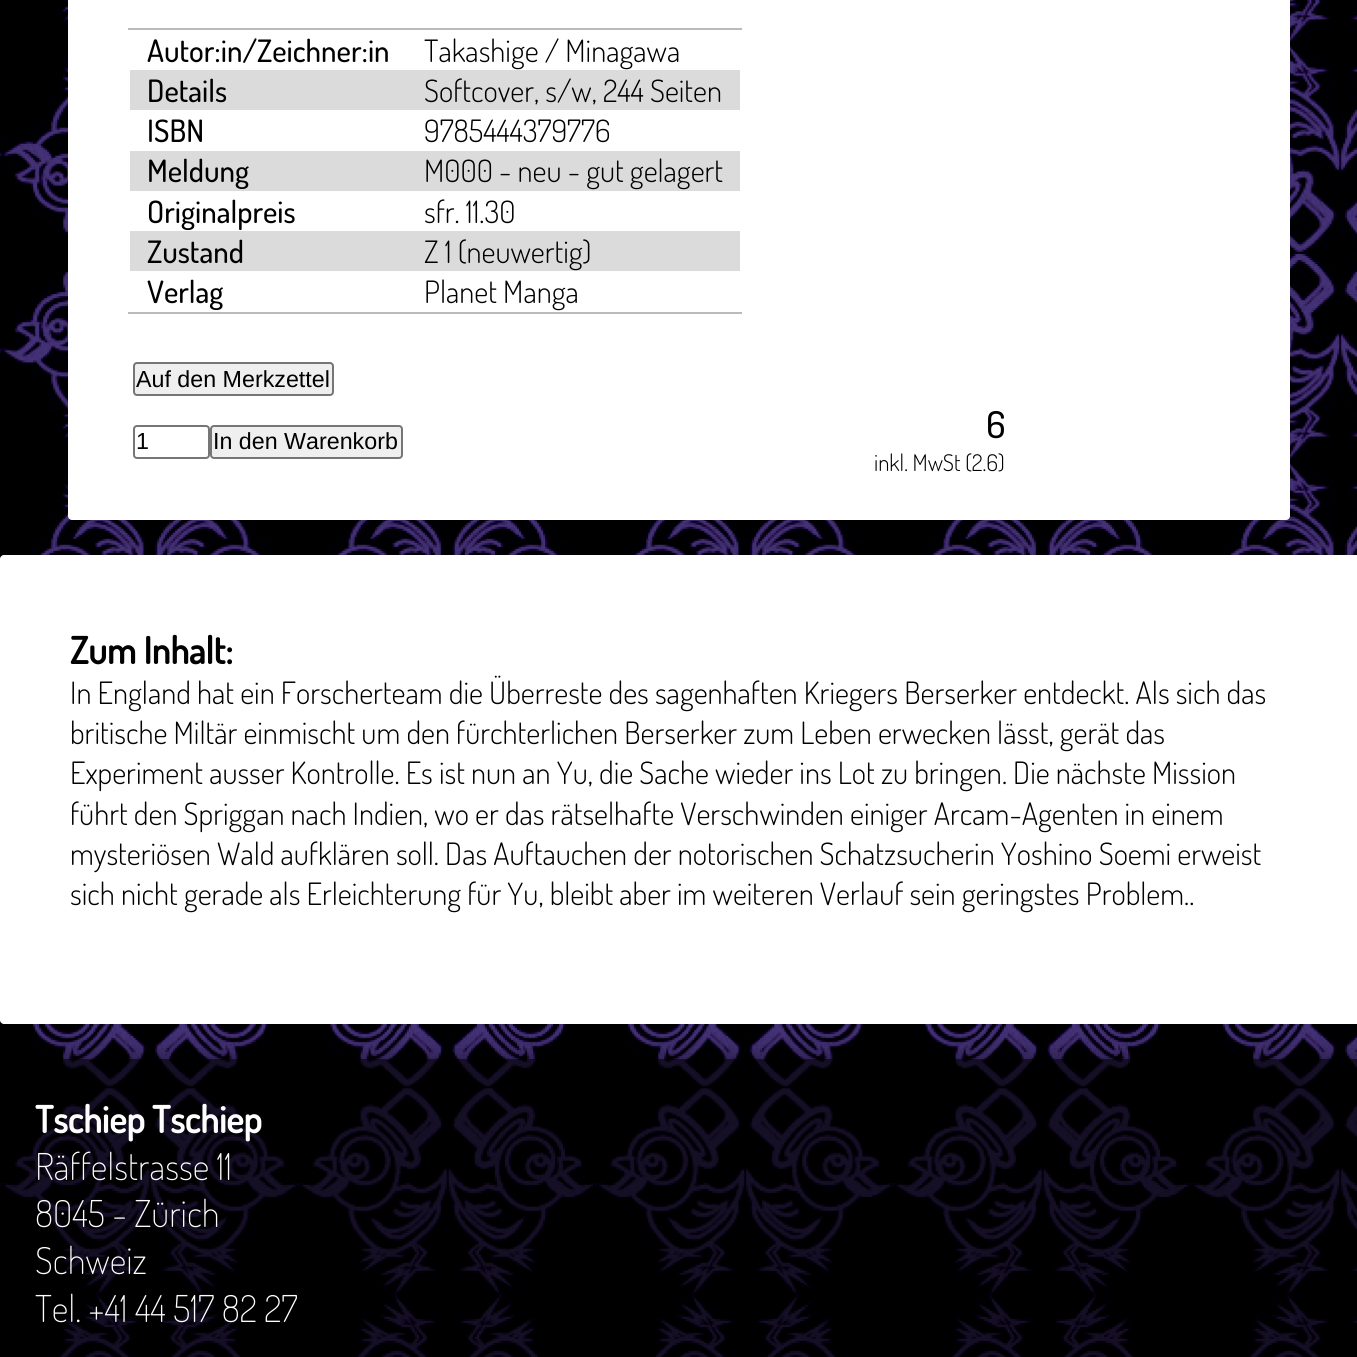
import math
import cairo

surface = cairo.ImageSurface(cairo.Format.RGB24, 1357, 1357)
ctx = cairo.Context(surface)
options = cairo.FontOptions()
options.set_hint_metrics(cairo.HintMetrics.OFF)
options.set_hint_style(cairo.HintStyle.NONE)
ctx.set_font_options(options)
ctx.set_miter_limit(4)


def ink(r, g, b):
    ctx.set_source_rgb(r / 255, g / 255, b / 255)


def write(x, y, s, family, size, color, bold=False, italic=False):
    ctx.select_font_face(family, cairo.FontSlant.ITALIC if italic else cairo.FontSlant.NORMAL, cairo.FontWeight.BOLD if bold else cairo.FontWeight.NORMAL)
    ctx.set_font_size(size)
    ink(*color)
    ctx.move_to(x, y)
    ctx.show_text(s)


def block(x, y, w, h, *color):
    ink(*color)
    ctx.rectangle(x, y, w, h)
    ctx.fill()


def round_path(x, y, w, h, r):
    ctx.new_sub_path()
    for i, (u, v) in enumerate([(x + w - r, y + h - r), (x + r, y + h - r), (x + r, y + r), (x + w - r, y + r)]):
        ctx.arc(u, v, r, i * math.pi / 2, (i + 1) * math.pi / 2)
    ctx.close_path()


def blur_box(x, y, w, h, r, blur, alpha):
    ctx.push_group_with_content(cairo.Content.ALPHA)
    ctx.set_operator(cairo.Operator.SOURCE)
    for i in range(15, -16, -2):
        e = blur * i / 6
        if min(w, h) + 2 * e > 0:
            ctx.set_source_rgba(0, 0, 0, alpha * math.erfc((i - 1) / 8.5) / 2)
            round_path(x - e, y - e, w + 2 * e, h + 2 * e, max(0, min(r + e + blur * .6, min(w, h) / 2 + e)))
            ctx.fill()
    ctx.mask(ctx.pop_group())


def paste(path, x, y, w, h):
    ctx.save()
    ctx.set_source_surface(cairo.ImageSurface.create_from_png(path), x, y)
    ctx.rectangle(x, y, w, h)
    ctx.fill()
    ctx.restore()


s1 = dict(family="Dosis Medium", size=30.8, color=(0, 0, 0))
s2 = dict(family="Dosis Light", size=30.8, color=(0, 0, 0))
s3 = dict(family="Liberation Sans", size=23.25, color=(0, 0, 0))
s4 = dict(family="Dosis Medium", size=37, color=(0, 0, 0))
s5 = dict(family="Dosis Light", size=23, color=(0, 0, 0))
s6 = dict(family="Dosis", size=37, color=(0, 0, 0), bold=True)
s7 = dict(family="Dosis", size=37, color=(255, 255, 255), bold=True)
s8 = dict(family="Dosis ExtraLight", size=37, color=(255, 255, 255))

ink(255, 255, 255)
ctx.paint()
paste("pic1.png", 0, 0, 1357, 1357)
ink(255, 255, 255)
round_path(68, -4, 1222, 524, 4)
ctx.fill()
block(128, 28, 614, 2, 187, 187, 187)
write(147, 62, "Autor:in/Zeichner:in", **s1)
write(424, 62, "Takashige / Minagawa", **s2)
block(130, 70, 610, 40, 219, 219, 219)
write(147, 102, "Details", **s1)
write(424, 102, "Softcover, s/w, 244 Seiten", **s2)
write(147, 142, "ISBN", **s1)
write(424, 142, "9785444379776", **s2)
block(130, 151, 610, 40, 219, 219, 219)
write(147, 182, "Meldung", **s1)
write(424, 182, "M000 - neu - gut gelagert", **s2)
write(147, 223, "Originalpreis", **s1)
write(424, 223, "sfr. 11.30", **s2)
block(130, 231, 610, 40, 219, 219, 219)
write(147, 263, "Zustand", **s1)
write(424, 263, "Z 1 (neuwertig)", **s2)
block(128, 312, 614, 2, 187, 187, 187)
write(147, 303, "Verlag", **s1)
write(424, 303, "Planet Manga", **s2)
ink(239, 239, 239)
round_path(134, 363, 199, 32, 3)
ctx.fill_preserve()
ink(118, 118, 118)
ctx.stroke()
write(136, 387, "Auf den Merkzettel", **s3)
round_path(134, 426, 75, 32, 3)
ink(118, 118, 118)
ctx.stroke()
write(136, 449, "1", **s3)
ink(239, 239, 239)
round_path(211, 426, 191, 32, 3)
ctx.fill_preserve()
ink(118, 118, 118)
ctx.stroke()
write(213, 449, "In den Warenkorb", **s3)
write(986, 438, "6", **s4)
write(874, 471, "inkl. MwSt (2.6)", **s5)
ink(255, 255, 255)
round_path(0, 555, 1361, 469, 4)
ctx.fill()
write(70, 664, "Zum Inhalt:", **s6)
write(70, 704, "In England hat ein Forscherteam die Überreste des sagenhaften Kriegers Berserker entdeckt. Als sich das", **s2)
write(70, 744, "britische Miltär einmischt um den fürchterlichen Berserker zum Leben erwecken lässt, gerät das", **s2)
write(70, 784, "Experiment ausser Kontrolle. Es ist nun an Yu, die Sache wieder ins Lot zu bringen. Die nächste Mission", **s2)
write(70, 825, "führt den Spriggan nach Indien, wo er das rätselhafte Verschwinden einiger Arcam-Agenten in einem", **s2)
write(70, 865, "mysteriösen Wald aufklären soll. Das Auftauchen der notorischen Schatzsucherin Yoshino Soemi erweist", **s2)
write(70, 905, "sich nicht gerade als Erleichterung für Yu, bleibt aber im weiteren Verlauf sein geringstes Problem..", **s2)
ctx.save()
ctx.rectangle(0, 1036, 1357, 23)
ctx.clip()
ink(0, 0, 0)
blur_box(0, 1059, 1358, 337, 0, 13, 0.5)
ctx.restore()
ctx.set_source_rgba(0, 0, 0, 0.67)
ctx.rectangle(0, 1059, 1357, 298)
ctx.fill()
write(35, 1133, "Tschiep Tschiep", **s7)
write(35, 1180, "Räffelstrasse 11", **s8)
write(35, 1227, "8045 - Zürich", **s8)
write(35, 1274, "Schweiz", **s8)
write(35, 1322, "Tel. +41 44 517 82 27", **s8)
surface.write_to_png("screenshot.png")
